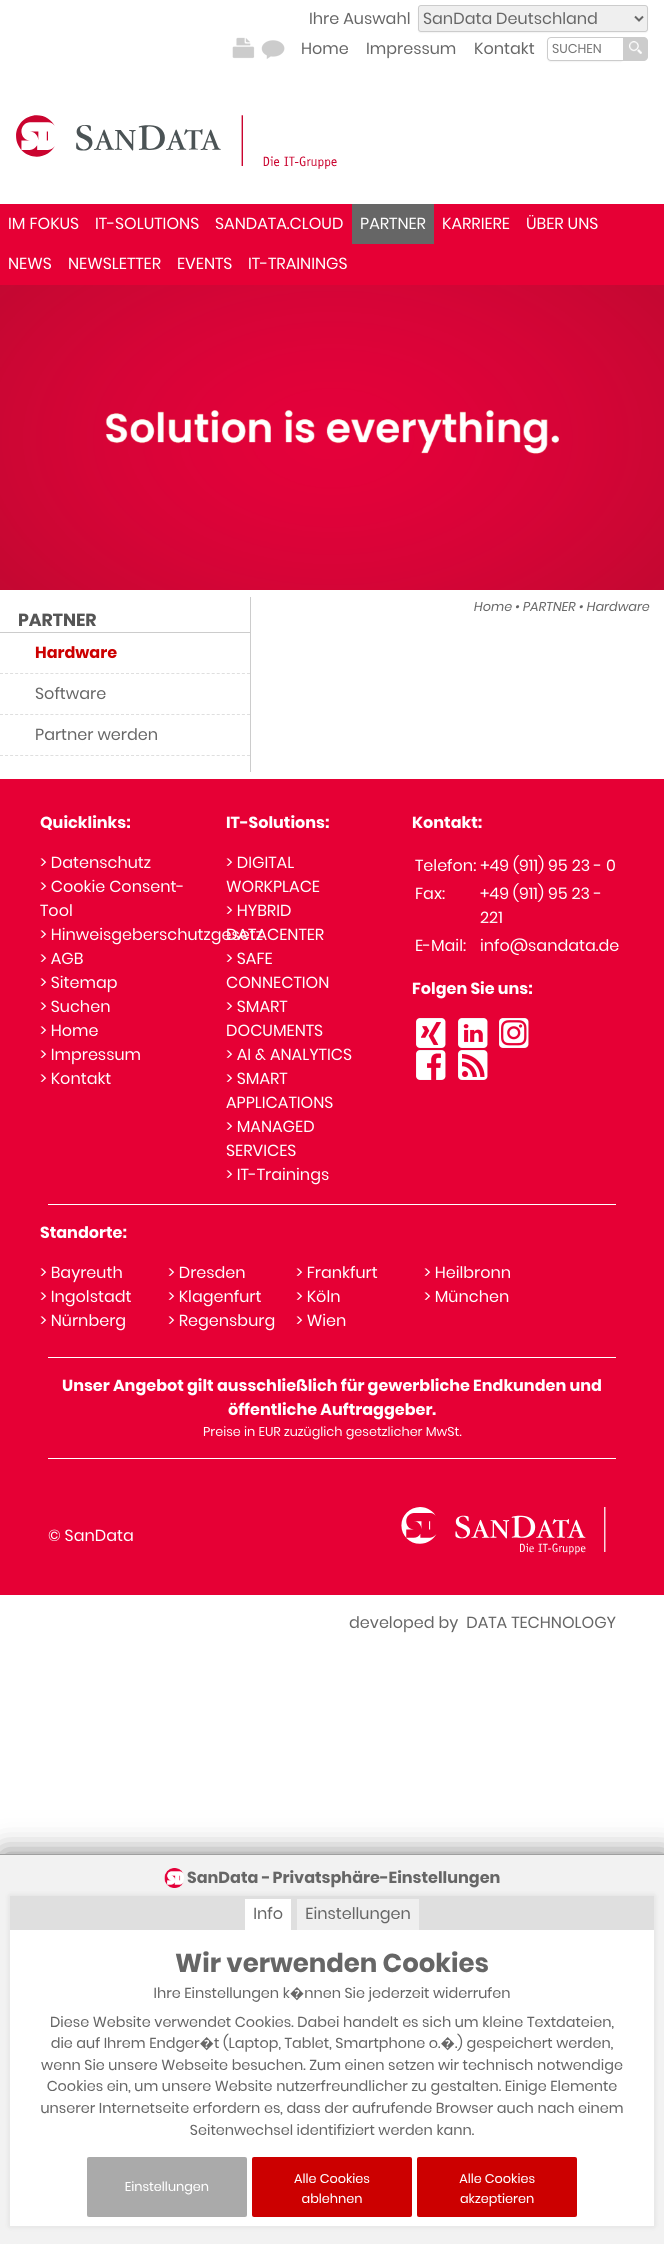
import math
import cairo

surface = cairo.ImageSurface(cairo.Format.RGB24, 664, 2244)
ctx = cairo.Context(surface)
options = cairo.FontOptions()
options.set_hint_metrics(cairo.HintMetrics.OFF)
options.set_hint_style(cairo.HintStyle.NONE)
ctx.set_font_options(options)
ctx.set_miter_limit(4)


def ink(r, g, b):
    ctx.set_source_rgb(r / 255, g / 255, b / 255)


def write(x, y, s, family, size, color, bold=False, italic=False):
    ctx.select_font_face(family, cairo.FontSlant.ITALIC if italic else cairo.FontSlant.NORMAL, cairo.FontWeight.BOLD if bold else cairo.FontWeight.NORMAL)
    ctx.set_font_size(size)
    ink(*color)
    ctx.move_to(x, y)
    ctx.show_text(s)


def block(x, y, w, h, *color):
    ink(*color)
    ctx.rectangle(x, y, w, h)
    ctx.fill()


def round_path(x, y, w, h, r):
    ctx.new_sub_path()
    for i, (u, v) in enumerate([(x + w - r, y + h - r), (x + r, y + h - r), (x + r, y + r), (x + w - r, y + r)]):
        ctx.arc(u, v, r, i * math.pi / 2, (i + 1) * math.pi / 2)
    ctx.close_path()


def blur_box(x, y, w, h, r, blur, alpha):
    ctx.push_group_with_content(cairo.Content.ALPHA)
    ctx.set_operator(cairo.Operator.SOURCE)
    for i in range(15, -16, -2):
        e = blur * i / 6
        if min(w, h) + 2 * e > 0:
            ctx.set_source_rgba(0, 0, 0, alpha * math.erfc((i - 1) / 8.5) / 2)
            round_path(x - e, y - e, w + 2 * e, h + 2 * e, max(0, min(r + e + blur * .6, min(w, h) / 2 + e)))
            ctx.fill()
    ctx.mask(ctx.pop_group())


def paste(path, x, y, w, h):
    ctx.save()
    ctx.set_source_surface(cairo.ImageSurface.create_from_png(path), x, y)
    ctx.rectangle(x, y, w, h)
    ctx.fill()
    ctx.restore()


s1 = dict(family="Poppins", size=16, color=(102, 102, 102))
s2 = dict(family="Poppins", size=12.8, color=(117, 117, 117))
s3 = dict(family="Poppins", size=16, color=(255, 255, 255))
s4 = dict(family="Poppins", size=12.8, color=(102, 102, 102), italic=True)
s5 = dict(family="Poppins", size=17.5, color=(85, 85, 85), bold=True)
s6 = dict(family="Poppins", size=16, color=(204, 0, 0), bold=True)
s7 = dict(family="Poppins", size=16, color=(255, 255, 255), bold=True)
s8 = dict(family="Poppins", size=12.8, color=(255, 255, 255))
s9 = dict(family="Poppins", size=16, color=(102, 102, 102), bold=True)

ink(255, 255, 255)
ctx.paint()
write(309, 24, "Ihre Auswahl", **s1)
ink(0, 0, 0)
blur_box(418, 6, 230, 27, 3, 0.5, 0.05)
ink(239, 239, 239)
round_path(418.5, 5.5, 229, 26, 2.5)
ctx.fill_preserve()
ink(204, 204, 204)
ctx.set_line_width(1)
ctx.stroke()
ctx.new_path()
ctx.move_to(635, 16.5)
ctx.line_to(639, 20.5)
ctx.line_to(643, 16.5)
ink(102, 102, 102)
ctx.set_line_width(2)
ctx.stroke()
write(423, 24, "SanData Deutschland", **s1)
block(232, 37, 23, 22, 204, 204, 204)
paste("pic1.png", 228, 34, 30, 30)
block(261, 40, 24, 20, 204, 204, 204)
paste("pic2.png", 258, 34, 30, 30)
write(301, 54, "Home", **s1)
write(366, 54, "Impressum", **s1)
write(474, 54, "Kontakt", **s1)
ink(0, 0, 0)
blur_box(547, 38, 77, 24, 4, 0.5, 0.05)
ink(255, 255, 255)
ctx.new_path()
ctx.move_to(551, 37.5)
ctx.line_to(623.5, 37.5)
ctx.line_to(623.5, 60.5)
ctx.line_to(551, 60.5)
ctx.curve_to(549, 60.5, 547.5, 59, 547.5, 57)
ctx.line_to(547.5, 41)
ctx.curve_to(547.5, 39, 549, 37.5, 551, 37.5)
ctx.close_path()
ctx.fill_preserve()
ink(204, 204, 204)
ctx.set_line_width(1)
ctx.stroke()
write(552, 53, "SUCHEN", **s2)
ink(204, 204, 204)
ctx.new_path()
ctx.move_to(624, 37)
ctx.line_to(644, 37)
ctx.curve_to(646, 37, 648, 39, 648, 41)
ctx.line_to(648, 57)
ctx.curve_to(648, 59, 646, 61, 644, 61)
ctx.line_to(624, 61)
ctx.close_path()
ctx.fill()
paste("pic3.png", 629, 41, 13, 13)
paste("pic4.png", 16, 115, 321, 54)
block(0, 204, 664, 81, 230, 0, 53)
write(8, 229, "IM FOKUS", **s3)
write(95, 229, "IT-SOLUTIONS", **s3)
write(215, 229, "SANDATA.CLOUD", **s3)
block(352, 204, 82, 40, 102, 102, 102)
write(360, 229, "PARTNER", **s3)
write(442, 229, "KARRIERE", **s3)
write(526, 229, "ÜBER UNS", **s3)
write(8, 269, "NEWS", **s3)
write(68, 269, "NEWSLETTER", **s3)
write(177, 269, "EVENTS", **s3)
write(248, 269, "IT-TRAININGS", **s3)
paste("pic5.png", 0, 285, 664, 305)
write(474, 611, "Home • PARTNER • Hardware", **s4)
block(250, 597, 1, 175, 204, 204, 204)
block(0, 632, 250, 1, 204, 204, 204)
write(18, 626, "PARTNER", **s5)
ctx.new_path()
ctx.move_to(0, 673.5)
ctx.line_to(250, 673.5)
ink(223, 223, 223)
ctx.set_dash([3, 2.04])
ctx.stroke()
write(35, 658, "Hardware", **s6)
ctx.new_path()
ctx.move_to(0, 714.5)
ctx.line_to(250, 714.5)
ink(223, 223, 223)
ctx.stroke()
write(35, 699, "Software", **s1)
ctx.new_path()
ctx.move_to(0, 755.5)
ctx.line_to(250, 755.5)
ink(223, 223, 223)
ctx.stroke()
write(35, 740, "Partner werden", **s1)
block(0, 779, 664, 816, 230, 0, 53)
write(40, 828, "Quicklinks:", **s7)
write(40, 868, "> Datenschutz", **s3)
write(40, 892, "> Cookie Consent-", **s3)
write(40, 916, "Tool", **s3)
write(40, 940, "> Hinweisgeberschutzgesetz", **s3)
write(40, 964, "> AGB", **s3)
write(40, 988, "> Sitemap", **s3)
write(40, 1012, "> Suchen", **s3)
write(40, 1036, "> Home", **s3)
write(40, 1060, "> Impressum", **s3)
write(40, 1084, "> Kontakt", **s3)
write(226, 828, "IT-Solutions:", **s7)
write(226, 868, "> DIGITAL", **s3)
write(226, 892, "WORKPLACE", **s3)
write(226, 916, "> HYBRID", **s3)
write(226, 940, "DATACENTER", **s3)
write(226, 964, "> SAFE", **s3)
write(226, 988, "CONNECTION", **s3)
write(226, 1012, "> SMART", **s3)
write(226, 1036, "DOCUMENTS", **s3)
write(226, 1060, "> AI & ANALYTICS", **s3)
write(226, 1084, "> SMART", **s3)
write(226, 1108, "APPLICATIONS", **s3)
write(226, 1132, "> MANAGED", **s3)
write(226, 1156, "SERVICES", **s3)
write(226, 1180, "> IT-Trainings", **s3)
write(412, 828, "Kontakt:", **s7)
write(415, 871, "Telefon: +49 (911) 95 23 - 0", **s3)
write(415, 899, "Fax:", **s3)
write(480, 899, "+49 (911) 95 23 -", **s3)
write(480, 923, "221", **s3)
write(415, 951, "E-Mail:", **s3)
write(480, 951, "info@sandata.de", **s3)
write(412, 994, "Folgen Sie uns:", **s7)
paste("pic6.png", 416, 1018, 30, 30)
paste("pic7.png", 458, 1018, 30, 30)
paste("pic8.png", 499, 1018, 30, 30)
paste("pic9.png", 416, 1050, 30, 30)
paste("pic10.png", 458, 1050, 30, 30)
block(48, 1204, 568, 1, 255, 255, 255)
write(40, 1238, "Standorte:", **s7)
write(40, 1278, "> Bayreuth", **s3)
write(168, 1278, "> Dresden", **s3)
write(296, 1278, "> Frankfurt", **s3)
write(424, 1278, "> Heilbronn", **s3)
write(40, 1302, "> Ingolstadt", **s3)
write(168, 1302, "> Klagenfurt", **s3)
write(296, 1302, "> Köln", **s3)
write(424, 1302, "> München", **s3)
write(40, 1326, "> Nürnberg", **s3)
write(168, 1326, "> Regensburg", **s3)
write(296, 1326, "> Wien", **s3)
block(48, 1357, 568, 1, 255, 255, 255)
write(62, 1391, "Unser Angebot gilt ausschließlich für gewerbliche Endkunden und", **s7)
write(228, 1415, "öffentliche Auftraggeber.", **s7)
write(203, 1436, "Preise in EUR zuzüglich gesetzlicher MwSt.", **s8)
block(48, 1458, 568, 1, 255, 255, 255)
write(48, 1541, "© SanData", **s3)
paste("pic11.png", 401, 1507, 205, 48)
write(349, 1628, "developed by  DATA TECHNOLOGY", **s1)
ink(0, 0, 0)
blur_box(3, 1854, 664, 390, 0, 14.5, 0.5)
block(0, 1855, 664, 389, 242, 242, 242)
block(0, 1854, 664, 1, 160, 160, 160)
paste("pic12.png", 164, 1868, 20, 20)
write(187, 1883, "SanData − Privatsphäre-Einstellungen", **s9)
ink(0, 0, 0)
blur_box(10, 1896, 644, 330, 0, 3, 0.1)
paste("pic13.png", 10, 1896, 644, 321)
block(10, 2217, 644, 9, 255, 255, 255)
surface.write_to_png("screenshot.png")
